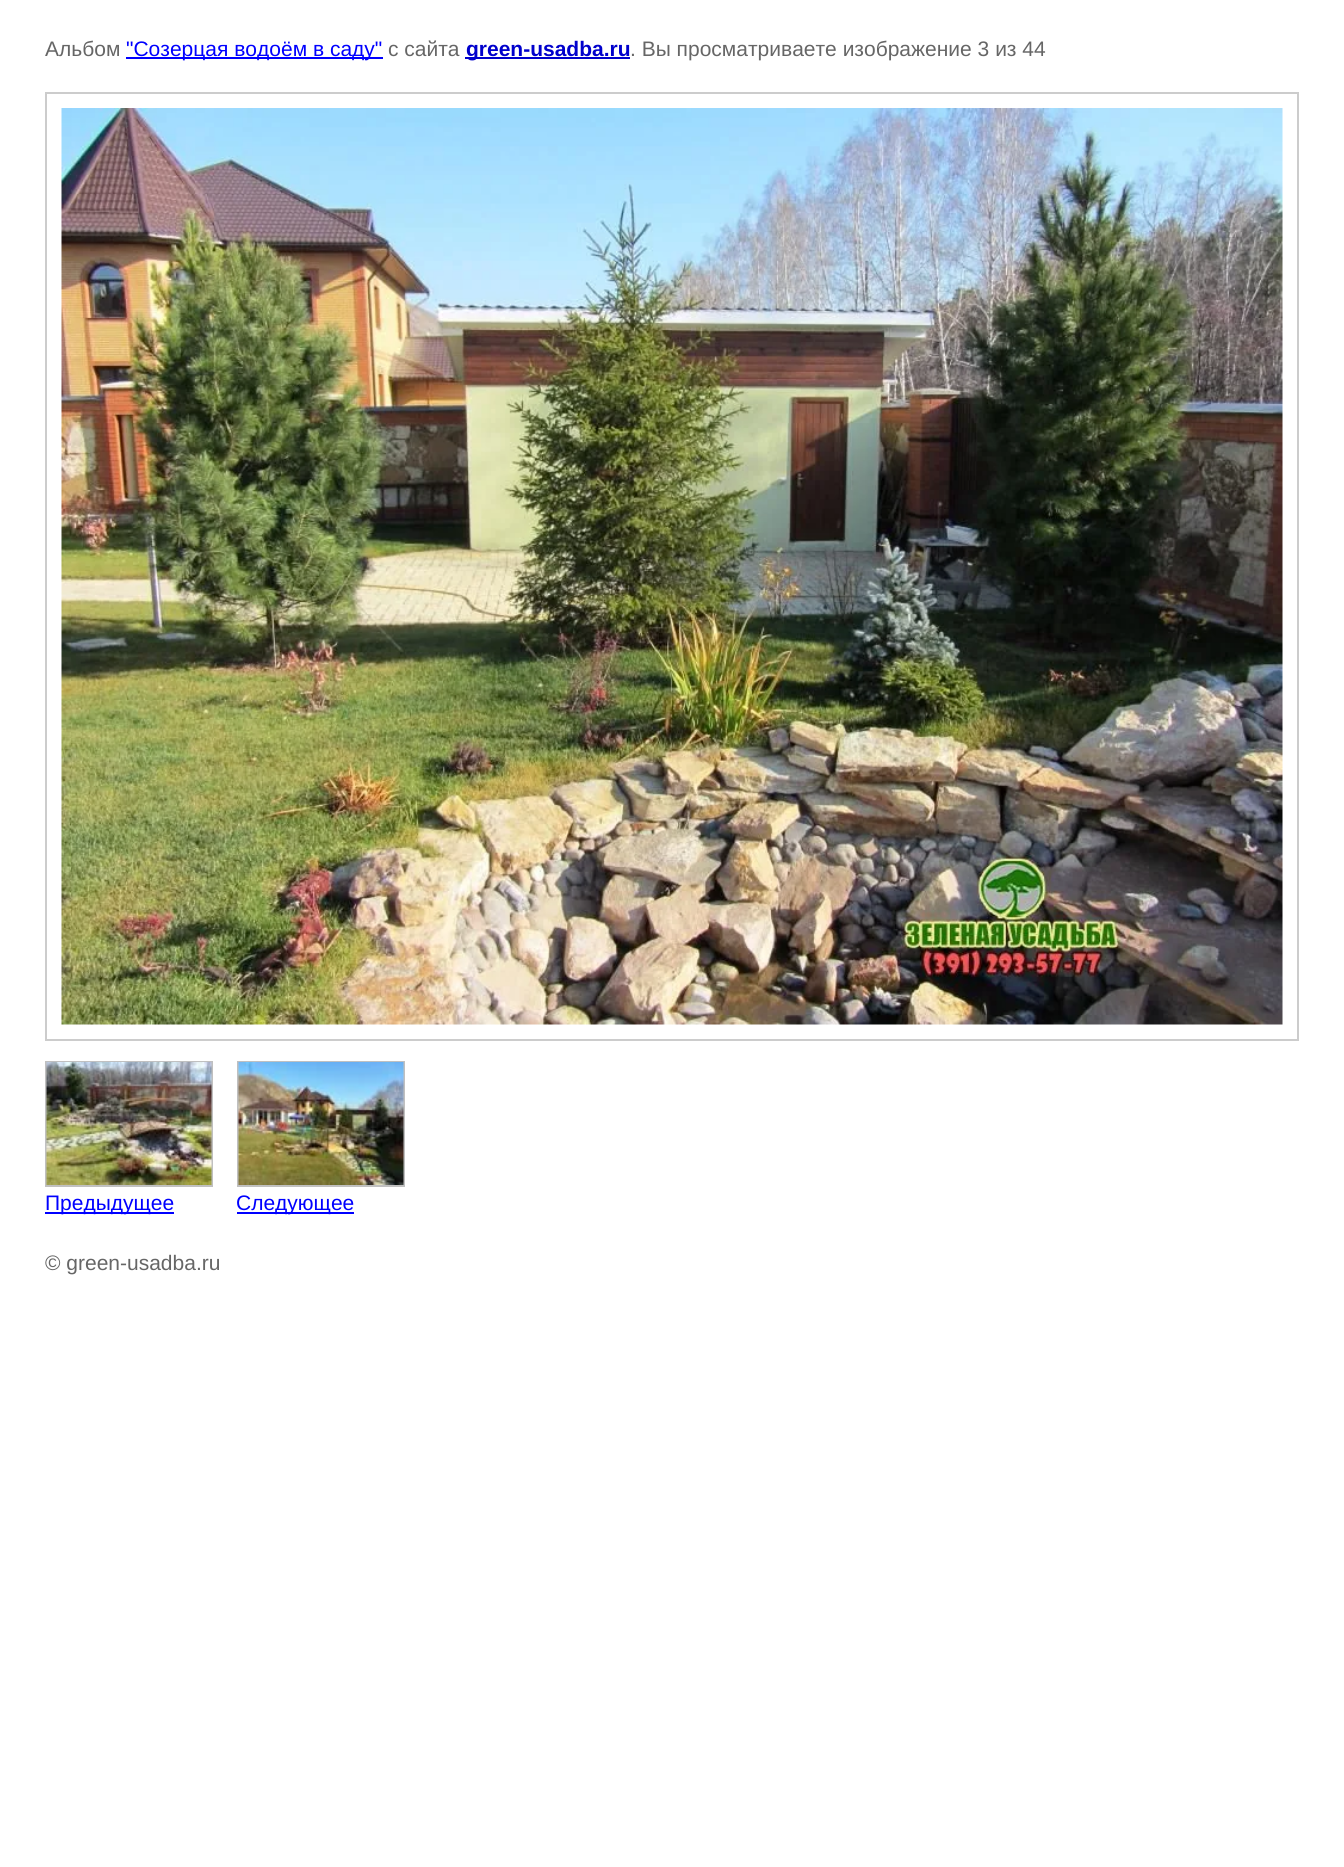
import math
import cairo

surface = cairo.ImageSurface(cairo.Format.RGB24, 1344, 1867)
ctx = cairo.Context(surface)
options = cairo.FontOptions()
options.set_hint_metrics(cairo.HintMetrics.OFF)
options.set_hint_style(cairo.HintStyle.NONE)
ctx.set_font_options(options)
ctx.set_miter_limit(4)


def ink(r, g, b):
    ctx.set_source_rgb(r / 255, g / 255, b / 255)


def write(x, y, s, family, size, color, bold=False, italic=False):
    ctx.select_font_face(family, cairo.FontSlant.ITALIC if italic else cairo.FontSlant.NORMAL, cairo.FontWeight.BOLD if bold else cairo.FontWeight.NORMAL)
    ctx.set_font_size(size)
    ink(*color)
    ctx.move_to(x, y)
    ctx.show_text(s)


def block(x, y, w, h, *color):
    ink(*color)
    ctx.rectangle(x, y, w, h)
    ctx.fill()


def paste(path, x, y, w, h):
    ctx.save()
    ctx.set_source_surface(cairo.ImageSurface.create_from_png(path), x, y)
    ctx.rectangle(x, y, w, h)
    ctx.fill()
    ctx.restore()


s1 = dict(family="Liberation Sans", size=21, color=(102, 102, 102))
s2 = dict(family="Liberation Sans", size=21, color=(0, 0, 255))
s3 = dict(family="Liberation Sans", size=21, color=(0, 0, 204), bold=True)

ink(255, 255, 255)
ctx.paint()
write(45, 56, "Альбом", **s1)
block(126, 57, 257, 2, 0, 0, 255)
write(126, 56, "\"Созерцая водоём в саду\"", **s2)
write(388, 56, "с сайта", **s1)
block(465, 57, 165, 2, 0, 0, 204)
write(466, 56, "green-usadba.ru", **s3)
write(630, 56, ". Вы просматриваете изображение 3 из 44", **s1)
ctx.rectangle(46, 93, 1252, 947)
ink(204, 204, 204)
ctx.stroke()
paste("pic1.png", 61, 108, 1222, 917)
ctx.rectangle(46, 1062, 166, 124)
ink(192, 192, 192)
ctx.stroke()
paste("pic2.png", 46, 1062, 166, 123)
block(45, 1212, 129, 2, 0, 0, 255)
write(45, 1210, "Предыдущее", **s2)
ctx.rectangle(238, 1062, 166, 124)
ink(192, 192, 192)
ctx.stroke()
paste("pic3.png", 238, 1062, 166, 123)
block(237, 1212, 117, 2, 0, 0, 255)
write(236, 1210, "Следующее", **s2)
write(45, 1270, "© green-usadba.ru", **s1)
surface.write_to_png("screenshot.png")
